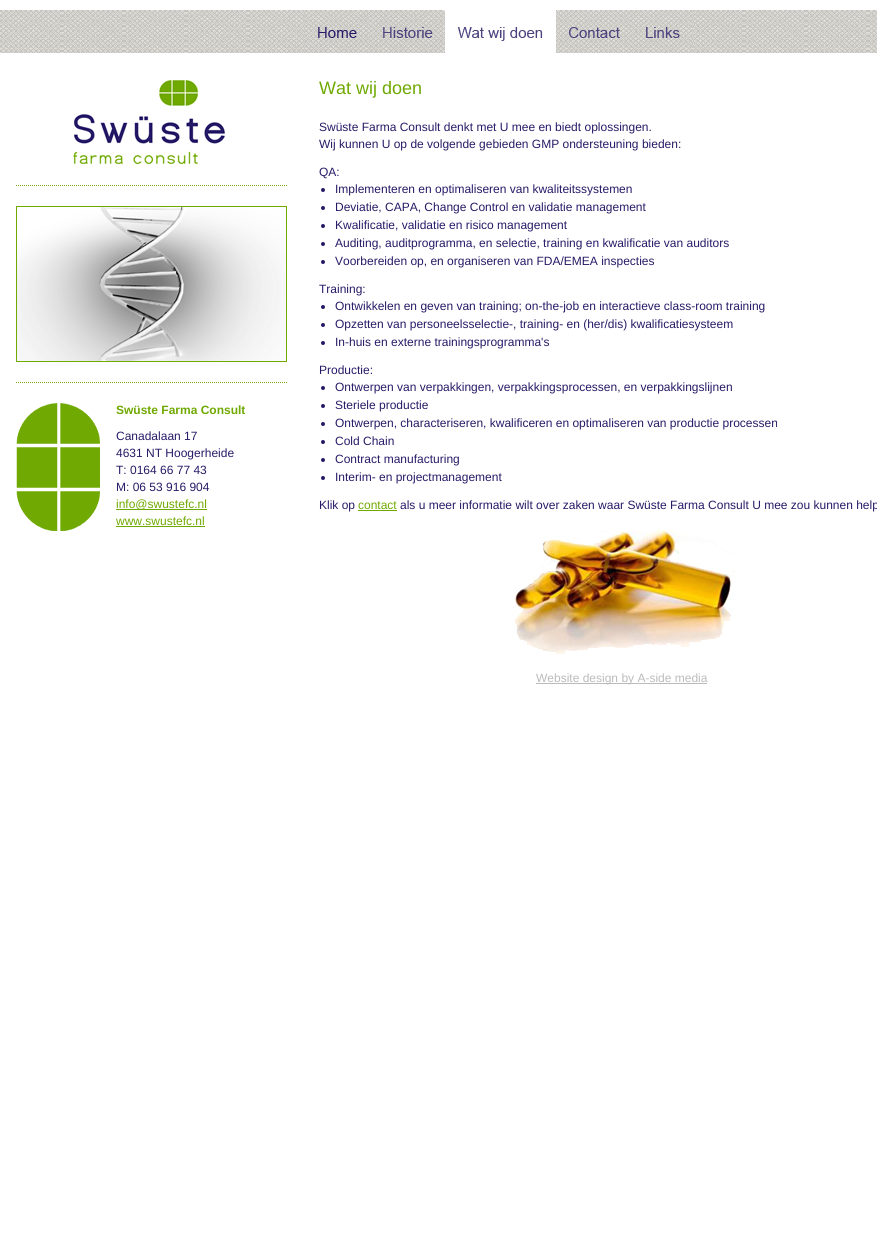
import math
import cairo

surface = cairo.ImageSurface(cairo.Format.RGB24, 877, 1253)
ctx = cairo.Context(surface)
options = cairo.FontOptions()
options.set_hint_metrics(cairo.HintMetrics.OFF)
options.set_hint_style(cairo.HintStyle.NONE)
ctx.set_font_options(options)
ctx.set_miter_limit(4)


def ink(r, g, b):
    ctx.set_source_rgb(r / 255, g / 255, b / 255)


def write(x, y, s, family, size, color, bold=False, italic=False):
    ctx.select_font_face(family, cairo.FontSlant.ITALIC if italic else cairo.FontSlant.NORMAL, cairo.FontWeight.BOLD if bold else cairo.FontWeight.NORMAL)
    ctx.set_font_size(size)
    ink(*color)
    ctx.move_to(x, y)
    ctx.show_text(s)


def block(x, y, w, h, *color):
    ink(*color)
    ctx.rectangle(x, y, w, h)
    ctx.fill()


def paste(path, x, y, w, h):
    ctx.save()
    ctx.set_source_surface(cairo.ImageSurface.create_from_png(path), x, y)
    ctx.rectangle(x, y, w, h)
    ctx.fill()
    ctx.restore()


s1 = dict(family="Liberation Sans", size=12, color=(112, 169, 2), bold=True)
s2 = dict(family="Liberation Sans", size=12, color=(38, 27, 103))
s3 = dict(family="Liberation Sans", size=12, color=(112, 169, 2))
s4 = dict(family="Liberation Sans", size=18, color=(112, 169, 2))
s5 = dict(family="Liberation Sans", size=12, color=(187, 187, 187))

ink(255, 255, 255)
ctx.paint()
paste("pic1.png", 0, 10, 877, 43)
paste("pic2.png", 304, 10, 67, 43)
paste("pic3.png", 371, 10, 74, 43)
paste("pic4.png", 445, 10, 111, 43)
paste("pic5.png", 556, 10, 76, 43)
paste("pic6.png", 632, 10, 61, 43)
paste("pic7.png", 73, 80, 152, 84)
ctx.new_path()
ctx.move_to(16, 185.5)
ctx.line_to(288, 185.5)
ink(112, 169, 2)
ctx.set_line_width(1)
ctx.set_dash([1, 1])
ctx.stroke()
ctx.rectangle(16.5, 206.5, 270, 155)
ctx.set_dash([])
ctx.stroke()
paste("pic8.png", 17, 207, 269, 154)
ctx.new_path()
ctx.move_to(16, 382.5)
ctx.line_to(288, 382.5)
ctx.set_dash([1, 1])
ctx.stroke()
paste("pic9.png", 16, 403, 84, 128)
write(116, 414, "Swüste Farma Consult", **s1)
write(116, 440, "Canadalaan 17", **s2)
write(116, 457, "4631 NT Hoogerheide", **s2)
write(116, 474, "T: 0164 66 77 43", **s2)
write(116, 491, "M: 06 53 916 904", **s2)
block(116, 509, 91, 1, 112, 169, 2)
write(116, 508, "info@swustefc.nl", **s3)
write(116, 525, "www.swustefc.nl", **s3)
block(116, 526, 89, 1, 112, 169, 2)
write(319, 94, "Wat wij doen", **s4)
write(319, 131, "Swüste Farma Consult denkt met U mee en biedt oplossingen.", **s2)
write(319, 148, "Wij kunnen U op de volgende gebieden GMP ondersteuning bieden:", **s2)
write(319, 176, "QA:", **s2)
ctx.new_path()
ctx.arc(323, 190, 2, 0, 2 * math.pi)
ctx.fill()
write(335, 193, "Implementeren en optimaliseren van kwaliteitssystemen", **s2)
ctx.new_path()
ctx.arc(323, 208, 2, 0, 2 * math.pi)
ctx.fill()
write(335, 211, "Deviatie, CAPA, Change Control en validatie management", **s2)
ctx.new_path()
ctx.arc(323, 226, 2, 0, 2 * math.pi)
ctx.fill()
write(335, 229, "Kwalificatie, validatie en risico management", **s2)
ctx.new_path()
ctx.arc(323, 244, 2, 0, 2 * math.pi)
ctx.fill()
write(335, 247, "Auditing, auditprogramma, en selectie, training en kwalificatie van auditors", **s2)
ctx.new_path()
ctx.arc(323, 262, 2, 0, 2 * math.pi)
ctx.fill()
write(335, 265, "Voorbereiden op, en organiseren van FDA/EMEA inspecties", **s2)
write(319, 293, "Training:", **s2)
ctx.new_path()
ctx.arc(323, 307, 2, 0, 2 * math.pi)
ctx.fill()
write(335, 310, "Ontwikkelen en geven van training; on-the-job en interactieve class-room training", **s2)
ctx.new_path()
ctx.arc(323, 325, 2, 0, 2 * math.pi)
ctx.fill()
write(335, 328, "Opzetten van personeelsselectie-, training- en (her/dis) kwalificatiesysteem", **s2)
ctx.new_path()
ctx.arc(323, 343, 2, 0, 2 * math.pi)
ctx.fill()
write(335, 346, "In-huis en externe trainingsprogramma's", **s2)
write(319, 374, "Productie:", **s2)
ctx.new_path()
ctx.arc(323, 388, 2, 0, 2 * math.pi)
ctx.fill()
write(335, 391, "Ontwerpen van verpakkingen, verpakkingsprocessen, en verpakkingslijnen", **s2)
ctx.new_path()
ctx.arc(323, 406, 2, 0, 2 * math.pi)
ctx.fill()
write(335, 409, "Steriele productie", **s2)
ctx.new_path()
ctx.arc(323, 424, 2, 0, 2 * math.pi)
ctx.fill()
write(335, 427, "Ontwerpen, characteriseren, kwalificeren en optimaliseren van productie processen", **s2)
ctx.new_path()
ctx.arc(323, 442, 2, 0, 2 * math.pi)
ctx.fill()
write(335, 445, "Cold Chain", **s2)
ctx.new_path()
ctx.arc(323, 460, 2, 0, 2 * math.pi)
ctx.fill()
write(335, 463, "Contract manufacturing", **s2)
ctx.new_path()
ctx.arc(323, 478, 2, 0, 2 * math.pi)
ctx.fill()
write(335, 481, "Interim- en projectmanagement", **s2)
write(319, 509, "Klik op", **s2)
write(358, 509, "contact", **s3)
block(358, 510, 39, 1, 112, 169, 2)
write(400, 509, "als u meer informatie wilt over zaken waar Swüste Farma Consult U mee zou kunnen help", **s2)
paste("pic10.png", 512, 527, 223, 127)
block(536, 683, 171, 1, 187, 187, 187)
write(536, 682, "Website design by A-side media", **s5)
surface.write_to_png("screenshot.png")
